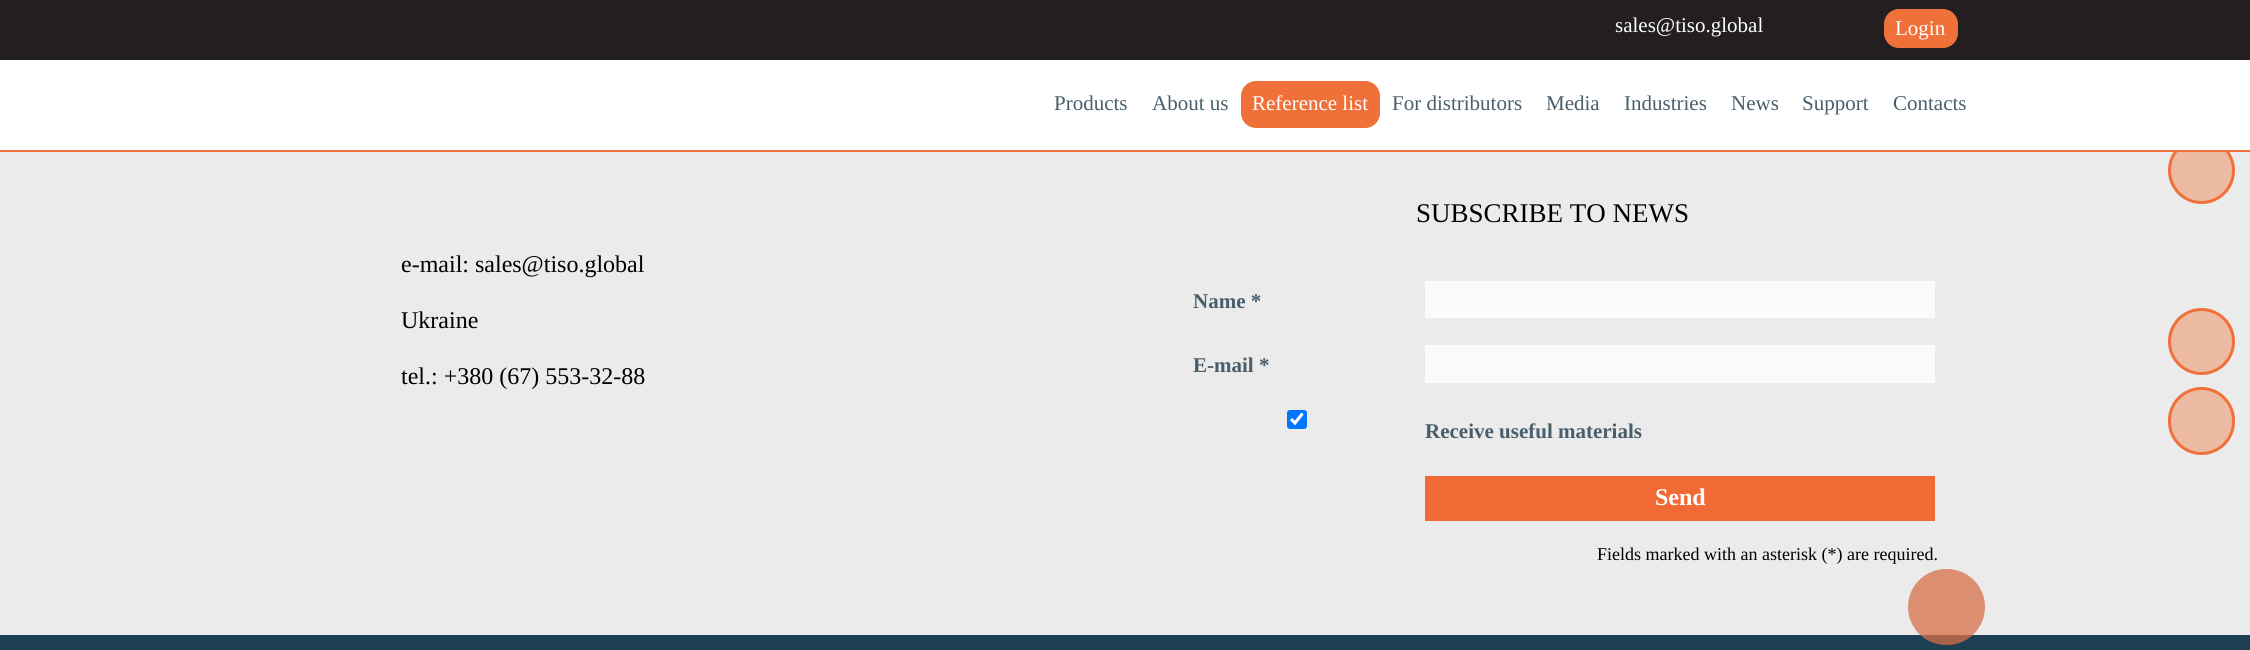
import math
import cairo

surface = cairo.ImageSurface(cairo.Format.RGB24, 2250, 650)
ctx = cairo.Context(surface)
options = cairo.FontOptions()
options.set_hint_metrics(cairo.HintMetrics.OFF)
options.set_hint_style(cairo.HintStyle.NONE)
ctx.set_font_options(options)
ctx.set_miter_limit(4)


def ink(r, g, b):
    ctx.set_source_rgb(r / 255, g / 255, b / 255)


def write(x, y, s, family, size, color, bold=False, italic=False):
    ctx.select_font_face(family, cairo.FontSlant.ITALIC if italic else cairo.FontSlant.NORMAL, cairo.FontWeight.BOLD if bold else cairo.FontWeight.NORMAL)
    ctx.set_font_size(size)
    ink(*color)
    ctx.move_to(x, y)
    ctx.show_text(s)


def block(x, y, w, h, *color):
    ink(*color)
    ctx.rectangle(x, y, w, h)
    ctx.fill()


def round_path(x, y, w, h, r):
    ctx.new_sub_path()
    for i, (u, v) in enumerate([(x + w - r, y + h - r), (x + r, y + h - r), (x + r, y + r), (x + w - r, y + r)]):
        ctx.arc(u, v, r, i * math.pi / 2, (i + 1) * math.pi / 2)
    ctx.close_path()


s1 = dict(family="Liberation Serif", size=21, color=(255, 255, 255))
s2 = dict(family="Liberation Serif", size=21, color=(73, 94, 106))
s3 = dict(family="Liberation Serif", size=24, color=(0, 0, 0))
s4 = dict(family="Liberation Serif", size=27, color=(0, 0, 0))
s5 = dict(family="Liberation Serif", size=21, color=(73, 94, 106), bold=True)
s6 = dict(family="Liberation Serif", size=24, color=(255, 255, 255), bold=True)
s7 = dict(family="Liberation Serif", size=18, color=(0, 0, 0))

ink(235, 235, 235)
ctx.paint()
ink(237, 186, 164)
ctx.arc(2201.5, 170.5, 32, 0, 2 * math.pi)
ctx.fill_preserve()
ink(240, 112, 57)
ctx.set_line_width(3)
ctx.stroke()
block(0, 60, 2250, 90, 255, 255, 255)
block(0, 0, 2250, 60, 35, 31, 32)
write(1615, 32, "sales@tiso.global", **s1)
ink(240, 112, 57)
round_path(1884, 9, 74, 39, 15)
ctx.fill()
write(1895, 35, "Login", **s1)
block(0, 150, 2250, 2, 240, 112, 57)
write(1054, 110, "Products", **s2)
write(1152, 110, "About us", **s2)
ink(240, 112, 57)
round_path(1241, 81, 139, 47, 15)
ctx.fill()
write(1252, 110, "Reference list", **s1)
write(1392, 110, "For dіstributors", **s2)
write(1546, 110, "Media", **s2)
write(1624, 110, "Industries", **s2)
write(1731, 110, "News", **s2)
write(1802, 110, "Support", **s2)
write(1893, 110, "Contacts", **s2)
write(401, 272, "e-mail: sales@tiso.global", **s3)
write(401, 328, "Ukraine", **s3)
write(401, 384, "tel.: +380 (67) 553-32-88", **s3)
write(1416, 222, "SUBSCRIBE TO NEWS", **s4)
write(1193, 308, "Name *", **s5)
block(1425, 281, 510, 37, 251, 251, 251)
write(1193, 372, "E-mail *", **s5)
block(1425, 345, 510, 38, 251, 251, 251)
ink(0, 117, 255)
round_path(1287, 410, 20, 19, 3)
ctx.fill()
ctx.new_path()
ctx.move_to(1291, 419)
ctx.line_to(1295, 423)
ctx.line_to(1302.5, 413.5)
ink(255, 255, 255)
ctx.set_line_width(3.1)
ctx.stroke()
write(1425, 438, "Receive useful materials", **s5)
block(1425, 476, 510, 45, 241, 106, 54)
write(1655, 505, "Send", **s6)
write(1597, 560, "Fields marked with an asterisk (*) are required.", **s7)
block(0, 635, 2250, 15, 29, 63, 83)
ctx.set_source_rgba(0.839, 0.435, 0.278, 0.75)
round_path(1908, 569, 77, 76, 38)
ctx.fill()
ink(237, 186, 164)
ctx.arc(2201.5, 341.5, 32, 0, 2 * math.pi)
ctx.fill_preserve()
ink(240, 112, 57)
ctx.set_line_width(3)
ctx.stroke()
ink(237, 186, 164)
round_path(2169.5, 388.5, 64, 65, 32)
ctx.fill_preserve()
ink(240, 112, 57)
ctx.stroke()
surface.write_to_png("screenshot.png")
